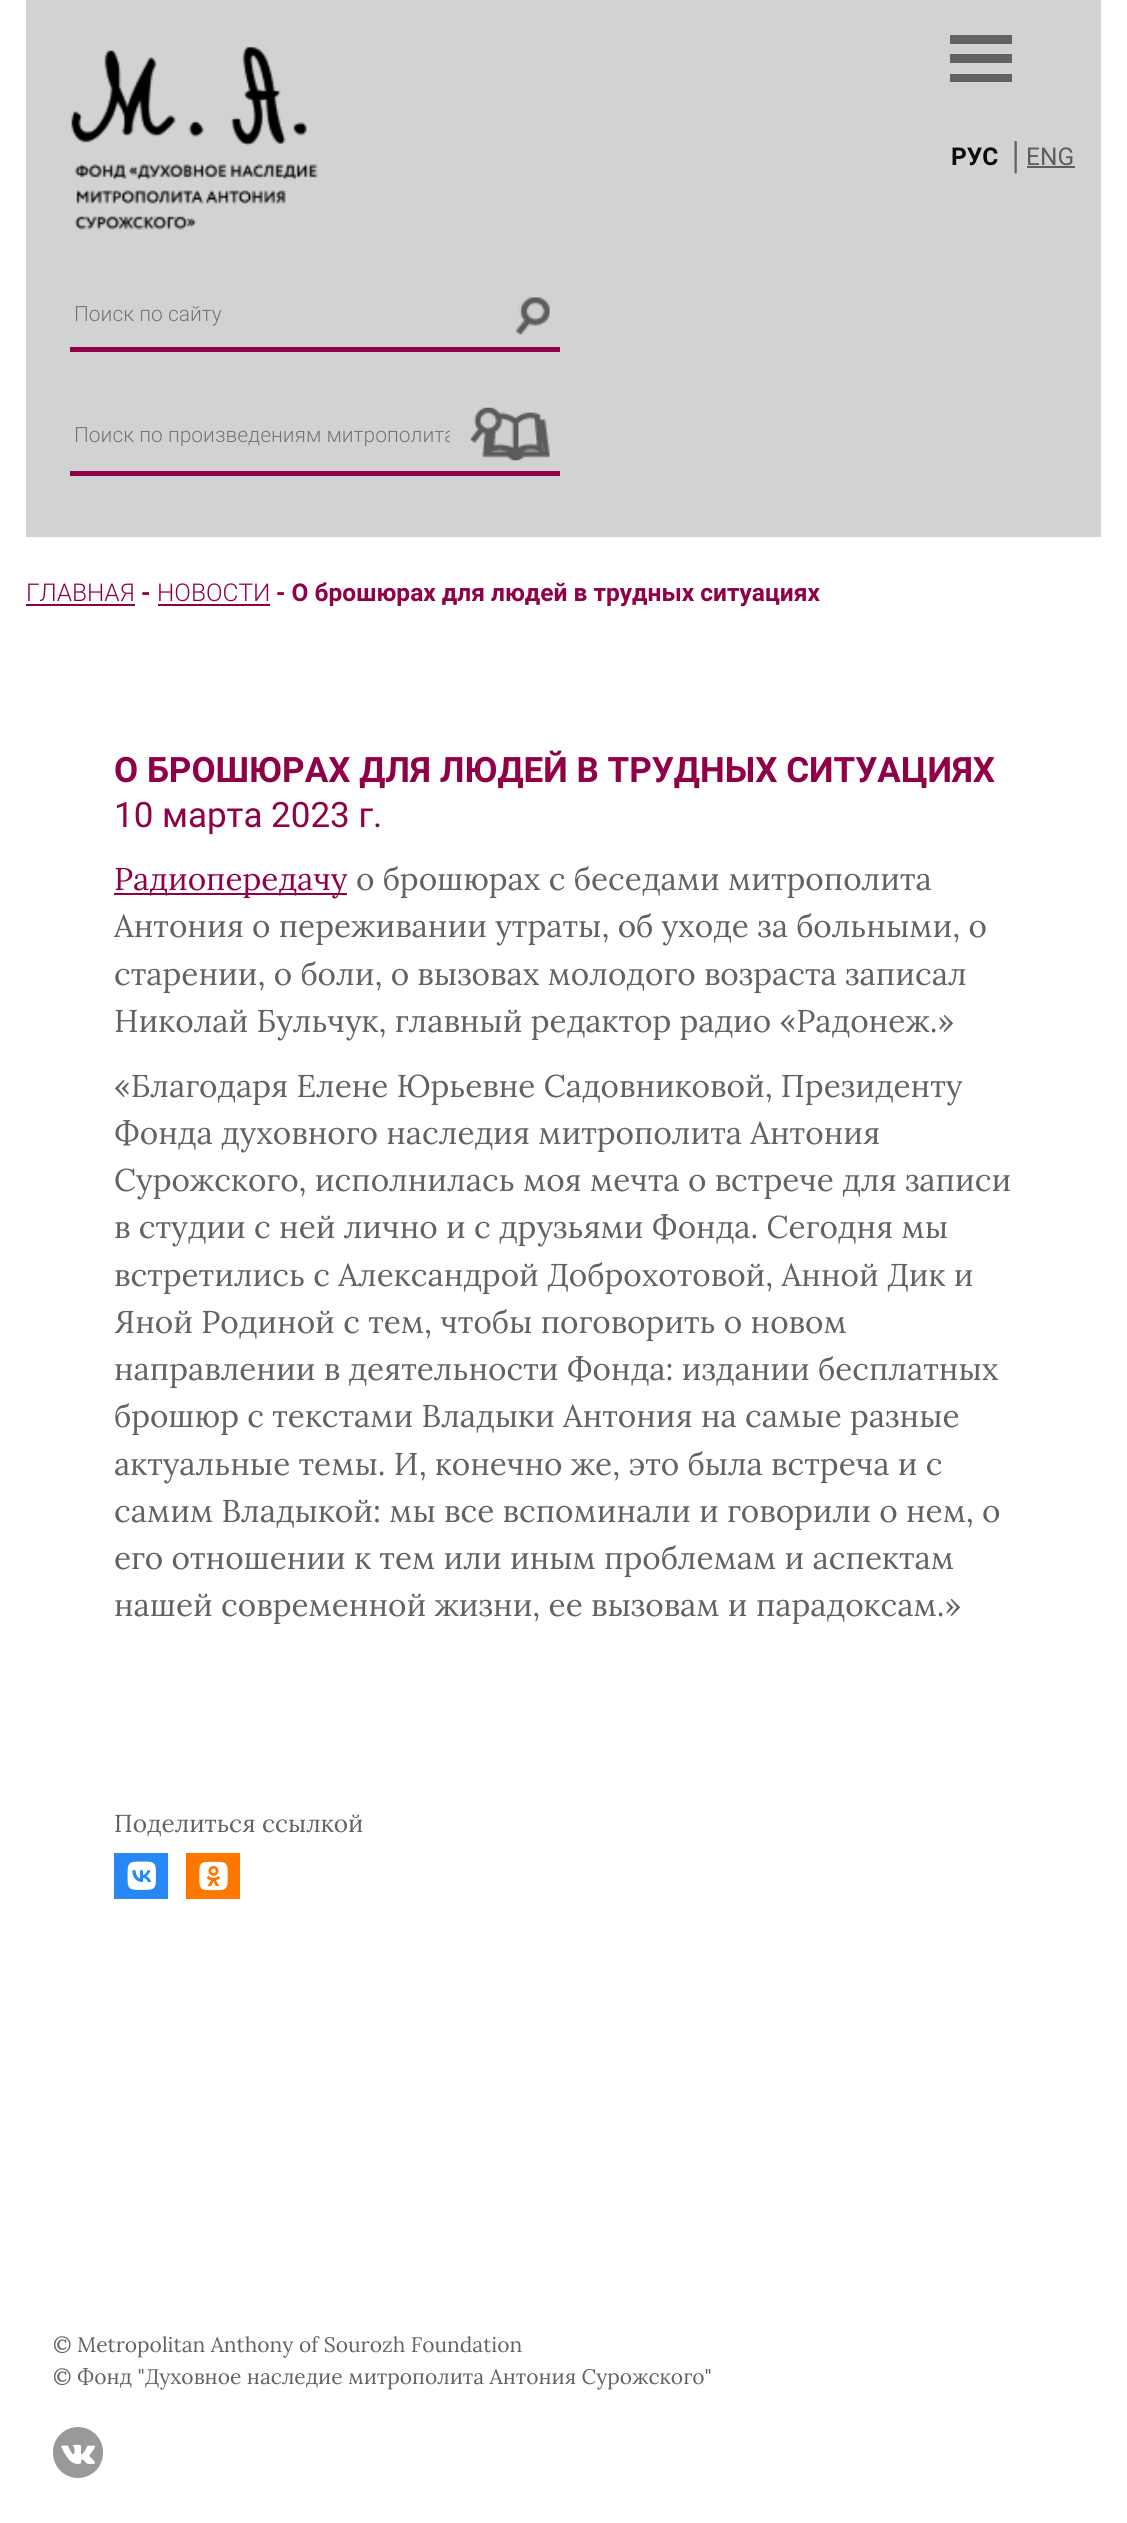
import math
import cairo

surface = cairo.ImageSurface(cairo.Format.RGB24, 1127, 2523)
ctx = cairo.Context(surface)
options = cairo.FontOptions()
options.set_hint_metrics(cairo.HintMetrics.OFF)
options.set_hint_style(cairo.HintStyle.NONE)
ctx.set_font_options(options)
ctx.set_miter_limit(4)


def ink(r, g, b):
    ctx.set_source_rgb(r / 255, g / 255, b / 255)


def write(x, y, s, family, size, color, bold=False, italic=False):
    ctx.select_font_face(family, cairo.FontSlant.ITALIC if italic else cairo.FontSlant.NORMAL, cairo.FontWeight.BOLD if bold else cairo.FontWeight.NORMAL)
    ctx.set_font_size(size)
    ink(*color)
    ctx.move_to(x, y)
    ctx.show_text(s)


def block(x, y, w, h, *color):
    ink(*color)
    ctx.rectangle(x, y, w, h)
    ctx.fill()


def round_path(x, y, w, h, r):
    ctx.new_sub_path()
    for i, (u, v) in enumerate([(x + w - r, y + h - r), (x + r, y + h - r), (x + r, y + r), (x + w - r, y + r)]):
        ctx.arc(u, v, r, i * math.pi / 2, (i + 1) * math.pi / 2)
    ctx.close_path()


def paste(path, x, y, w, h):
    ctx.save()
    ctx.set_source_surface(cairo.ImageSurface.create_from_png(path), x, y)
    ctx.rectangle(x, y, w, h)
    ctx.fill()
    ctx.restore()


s1 = dict(family="Roboto", size=24.5, color=(9, 9, 9), bold=True)
s2 = dict(family="Lora", size=31.5, color=(97, 98, 100))
s3 = dict(family="Roboto", size=24.5, color=(94, 94, 94))
s4 = dict(family="Roboto Light", size=21, color=(117, 117, 117))
s5 = dict(family="Roboto Light", size=24.5, color=(143, 0, 71))
s6 = dict(family="Roboto", size=24.5, color=(143, 0, 71), bold=True)
s7 = dict(family="Roboto", size=35, color=(143, 0, 71), bold=True)
s8 = dict(family="Roboto", size=35, color=(143, 0, 71))
s9 = dict(family="Lora", size=31.5, color=(143, 0, 71))
s10 = dict(family="Lora", size=24.5, color=(97, 98, 100))
s11 = dict(family="Lora", size=21, color=(97, 98, 100))

ink(255, 255, 255)
ctx.paint()
block(26, 0, 1075, 537, 209, 210, 210)
block(950, 35, 62, 9, 97, 98, 100)
block(950, 54, 62, 9, 97, 98, 100)
block(950, 74, 62, 8, 97, 98, 100)
write(951, 165, "РУС", **s1)
write(1012, 165, "|", **s2)
write(1026, 165, "ENG", **s3)
block(1027, 166, 48, 2, 94, 94, 94)
paste("pic1.png", 71, 46, 247, 184)
block(70, 347, 490, 5, 143, 0, 71)
write(74, 321, "Поиск по сайту", **s4)
paste("pic2.png", 516, 297, 34, 38)
block(70, 471, 490, 5, 143, 0, 71)
ctx.save()
ctx.rectangle(74, 418, 376, 28)
ctx.clip()
write(74, 442, "Поиск по произведениям митрополита", **s4)
ctx.restore()
paste("pic3.png", 470, 407, 80, 54)
write(26, 601, "ГЛАВНАЯ", **s5)
block(26, 604, 109, 2, 143, 0, 71)
write(141, 601, "-", **s6)
write(157, 601, "НОВОСТИ", **s5)
block(158, 604, 112, 2, 143, 0, 71)
write(276, 601, "- О брошюрах для людей в трудных ситуациях", **s6)
write(114, 782, "О БРОШЮРАХ ДЛЯ ЛЮДЕЙ В ТРУДНЫХ СИТУАЦИЯХ", **s7)
write(114, 827, "10 марта 2023 г.", **s8)
block(114, 893, 233, 2, 143, 0, 71)
write(114, 890, "Радиопередачу", **s9)
write(356, 890, "о брошюрах с беседами митрополита", **s2)
write(114, 937, "Антония о переживании утраты, об уходе за больными, о", **s2)
write(114, 985, "старении, о боли, о вызовах молодого возраста записал", **s2)
write(114, 1032, "Николай Бульчук, главный редактор радио «Радонеж.»", **s2)
write(114, 1097, "«Благодаря Елене Юрьевне Садовниковой, Президенту", **s2)
write(114, 1144, "Фонда духовного наследия митрополита Антония", **s2)
write(114, 1191, "Сурожского, исполнилась моя мечта о встрече для записи", **s2)
write(114, 1238, "в студии с ней лично и с друзьями Фонда. Сегодня мы", **s2)
write(114, 1286, "встретились с Александрой Доброхотовой, Анной Дик и", **s2)
write(114, 1333, "Яной Родиной с тем, чтобы поговорить о новом", **s2)
write(114, 1380, "направлении в деятельности Фонда: издании бесплатных", **s2)
write(114, 1427, "брошюр с текстами Владыки Антония на самые разные", **s2)
write(114, 1475, "актуальные темы. И, конечно же, это была встреча и с", **s2)
write(114, 1522, "самим Владыкой: мы все вспоминали и говорили о нем, о", **s2)
write(114, 1569, "его отношении к тем или иным проблемам и аспектам", **s2)
write(114, 1616, "нашей современной жизни, ее вызовам и парадоксам.»", **s2)
write(114, 1832, "Поделиться ссылкой", **s10)
block(114, 1853, 54, 46, 39, 135, 245)
paste("pic4.png", 127, 1861, 29, 29)
block(186, 1853, 54, 46, 255, 119, 0)
paste("pic5.png", 199, 1861, 29, 30)
write(53, 2352, "© Metropolitan Anthony of Sourozh Foundation", **s11)
write(53, 2384, "© Фонд \"Духовное наследие митрополита Антония Сурожского\"", **s11)
ink(153, 153, 153)
round_path(53, 2427, 50, 51, 25)
ctx.fill()
paste("pic6.png", 61, 2444, 34, 20)
surface.write_to_png("screenshot.png")
